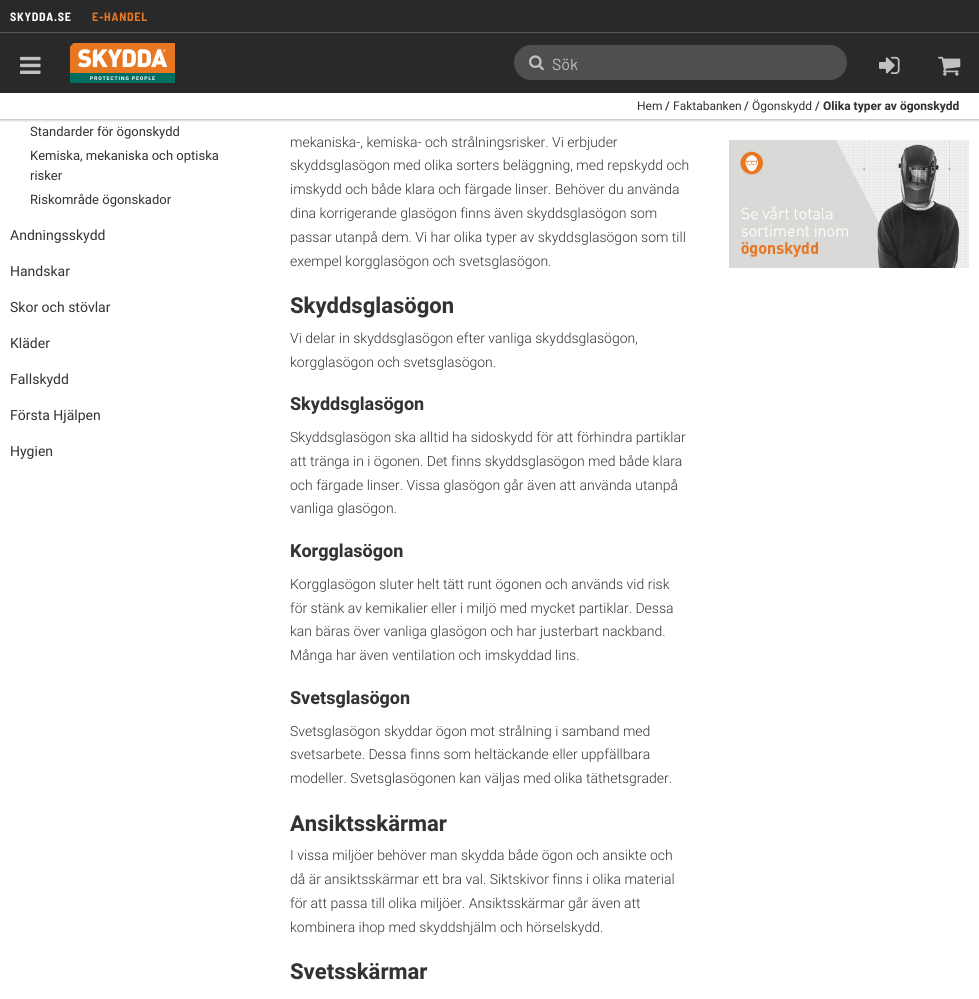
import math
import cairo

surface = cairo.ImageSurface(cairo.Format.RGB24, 979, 999)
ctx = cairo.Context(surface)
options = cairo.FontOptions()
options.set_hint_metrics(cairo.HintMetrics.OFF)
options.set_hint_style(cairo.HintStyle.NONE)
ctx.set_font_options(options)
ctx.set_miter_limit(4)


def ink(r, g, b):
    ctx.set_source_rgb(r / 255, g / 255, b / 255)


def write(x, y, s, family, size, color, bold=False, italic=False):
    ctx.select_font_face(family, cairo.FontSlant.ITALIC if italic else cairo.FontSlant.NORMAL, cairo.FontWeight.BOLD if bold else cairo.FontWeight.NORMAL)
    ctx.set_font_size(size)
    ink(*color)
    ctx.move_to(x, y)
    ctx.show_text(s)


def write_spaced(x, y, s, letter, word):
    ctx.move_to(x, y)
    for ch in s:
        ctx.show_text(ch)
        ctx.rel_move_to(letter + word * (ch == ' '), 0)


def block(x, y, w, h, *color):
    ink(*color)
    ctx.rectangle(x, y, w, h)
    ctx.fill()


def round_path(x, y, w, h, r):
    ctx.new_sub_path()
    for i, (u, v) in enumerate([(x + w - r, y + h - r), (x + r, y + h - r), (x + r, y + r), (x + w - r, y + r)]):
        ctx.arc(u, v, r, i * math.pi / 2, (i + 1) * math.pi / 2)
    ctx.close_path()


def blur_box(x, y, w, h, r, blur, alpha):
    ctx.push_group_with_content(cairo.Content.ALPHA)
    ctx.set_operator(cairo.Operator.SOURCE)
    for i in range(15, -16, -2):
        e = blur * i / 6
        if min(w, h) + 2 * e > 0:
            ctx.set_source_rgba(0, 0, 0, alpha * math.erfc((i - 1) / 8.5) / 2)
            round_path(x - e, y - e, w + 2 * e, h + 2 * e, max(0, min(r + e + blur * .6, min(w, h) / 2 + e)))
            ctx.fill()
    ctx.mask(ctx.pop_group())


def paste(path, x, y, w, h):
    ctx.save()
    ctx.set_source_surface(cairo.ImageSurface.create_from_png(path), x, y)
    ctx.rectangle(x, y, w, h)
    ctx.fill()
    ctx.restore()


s1 = dict(family="Barlow", size=16, color=(193, 193, 193))
s2 = dict(family="Heebo", size=12, color=(51, 51, 51))
s3 = dict(family="Heebo Medium", size=12, color=(51, 51, 51))
s4 = dict(family="Heebo", size=12, color=(51, 51, 51), bold=True)
s5 = dict(family="Heebo", size=13, color=(51, 51, 51))
s6 = dict(family="Heebo", size=14, color=(51, 51, 51))
s7 = dict(family="Heebo Light", size=14, color=(51, 51, 51))
s8 = dict(family="Heebo", size=22, color=(51, 51, 51), bold=True)
s9 = dict(family="Heebo", size=18, color=(51, 51, 51), bold=True)

ink(255, 255, 255)
ctx.paint()
ink(0, 0, 0)
blur_box(-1, -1, 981, 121, 0, 1.5, 0.3)
block(0, 93, 979, 26, 255, 255, 255)
block(0, 0, 979, 32, 41, 41, 41)
block(0, 32, 979, 1, 85, 88, 90)
ctx.select_font_face("Barlow Semi Condensed", cairo.FontSlant.NORMAL, cairo.FontWeight.BOLD)
ctx.set_font_size(12)
ink(255, 255, 255)
write_spaced(10, 21, "SKYDDA.SE", 0.75, 0)
ink(232, 119, 34)
write_spaced(92, 21, "E-HANDEL", 0.75, 0)
block(0, 33, 979, 60, 41, 41, 41)
paste("pic1.png", 20, 56, 21, 18)
paste("pic2.png", 70, 43, 105, 40)
ink(77, 79, 80)
round_path(514, 45, 333, 35, 17.5)
ctx.fill()
paste("pic3.png", 529, 55, 15, 16)
write(552, 70, "Sök", **s1)
paste("pic4.png", 879, 56, 21, 18)
paste("pic5.png", 938, 56, 23, 20)
write(637, 110, "Hem", **s2)
write(665, 110, "/", **s3)
write(673, 110, "Faktabanken", **s2)
write(744, 110, "/", **s3)
write(752, 110, "Ögonskydd", **s2)
write(815, 110, "/", **s3)
write(823, 110, "Olika typer av ögonskydd", **s4)
write(30, 136, "Standarder för ögonskydd", **s5)
write(30, 160, "Kemiska, mekaniska och optiska", **s5)
write(30, 180, "risker", **s5)
write(30, 204, "Riskområde ögonskador", **s5)
write(10, 240, "Andningsskydd", **s6)
write(10, 276, "Handskar", **s6)
write(10, 312, "Skor och stövlar", **s6)
write(10, 348, "Kläder", **s6)
write(10, 384, "Fallskydd", **s6)
write(10, 420, "Första Hjälpen", **s6)
write(10, 456, "Hygien", **s6)
write(290, 147, "mekaniska-, kemiska- och strålningsrisker. Vi erbjuder", **s7)
write(290, 170, "skyddsglasögon med olika sorters beläggning, med repskydd och", **s7)
write(290, 194, "imskydd och både klara och färgade linser. Behöver du använda", **s7)
write(290, 218, "dina korrigerande glasögon finns även skyddsglasögon som", **s7)
write(290, 242, "passar utanpå dem. Vi har olika typer av skyddsglasögon som till", **s7)
write(290, 266, "exempel korgglasögon och svetsglasögon.", **s7)
write(290, 313, "Skyddsglasögon", **s8)
write(290, 343, "Vi delar in skyddsglasögon efter vanliga skyddsglasögon,", **s7)
write(290, 367, "korgglasögon och svetsglasögon.", **s7)
write(290, 410, "Skyddsglasögon", **s9)
write(290, 442, "Skyddsglasögon ska alltid ha sidoskydd för att förhindra partiklar", **s7)
write(290, 466, "att tränga in i ögonen. Det finns skyddsglasögon med både klara", **s7)
write(290, 490, "och färgade linser. Vissa glasögon går även att använda utanpå", **s7)
write(290, 513, "vanliga glasögon.", **s7)
write(290, 557, "Korgglasögon", **s9)
write(290, 589, "Korgglasögon sluter helt tätt runt ögonen och används vid risk", **s7)
write(290, 613, "för stänk av kemikalier eller i miljö med mycket partiklar. Dessa", **s7)
write(290, 636, "kan bäras över vanliga glasögon och har justerbart nackband.", **s7)
write(290, 660, "Många har även ventilation och imskyddad lins.", **s7)
write(290, 704, "Svetsglasögon", **s9)
write(290, 736, "Svetsglasögon skyddar ögon mot strålning i samband med", **s7)
write(290, 759, "svetsarbete. Dessa finns som heltäckande eller uppfällbara", **s7)
write(290, 783, "modeller. Svetsglasögonen kan väljas med olika täthetsgrader.", **s7)
write(290, 831, "Ansiktsskärmar", **s8)
write(290, 860, "I vissa miljöer behöver man skydda både ögon och ansikte och", **s7)
write(290, 884, "då är ansiktsskärmar ett bra val. Siktskivor finns i olika material", **s7)
write(290, 908, "för att passa till olika miljöer. Ansiktsskärmar går även att", **s7)
write(290, 932, "kombinera ihop med skyddshjälm och hörselskydd.", **s7)
write(290, 979, "Svetsskärmar", **s8)
paste("pic6.png", 729, 140, 240, 128)
surface.write_to_png("screenshot.png")
